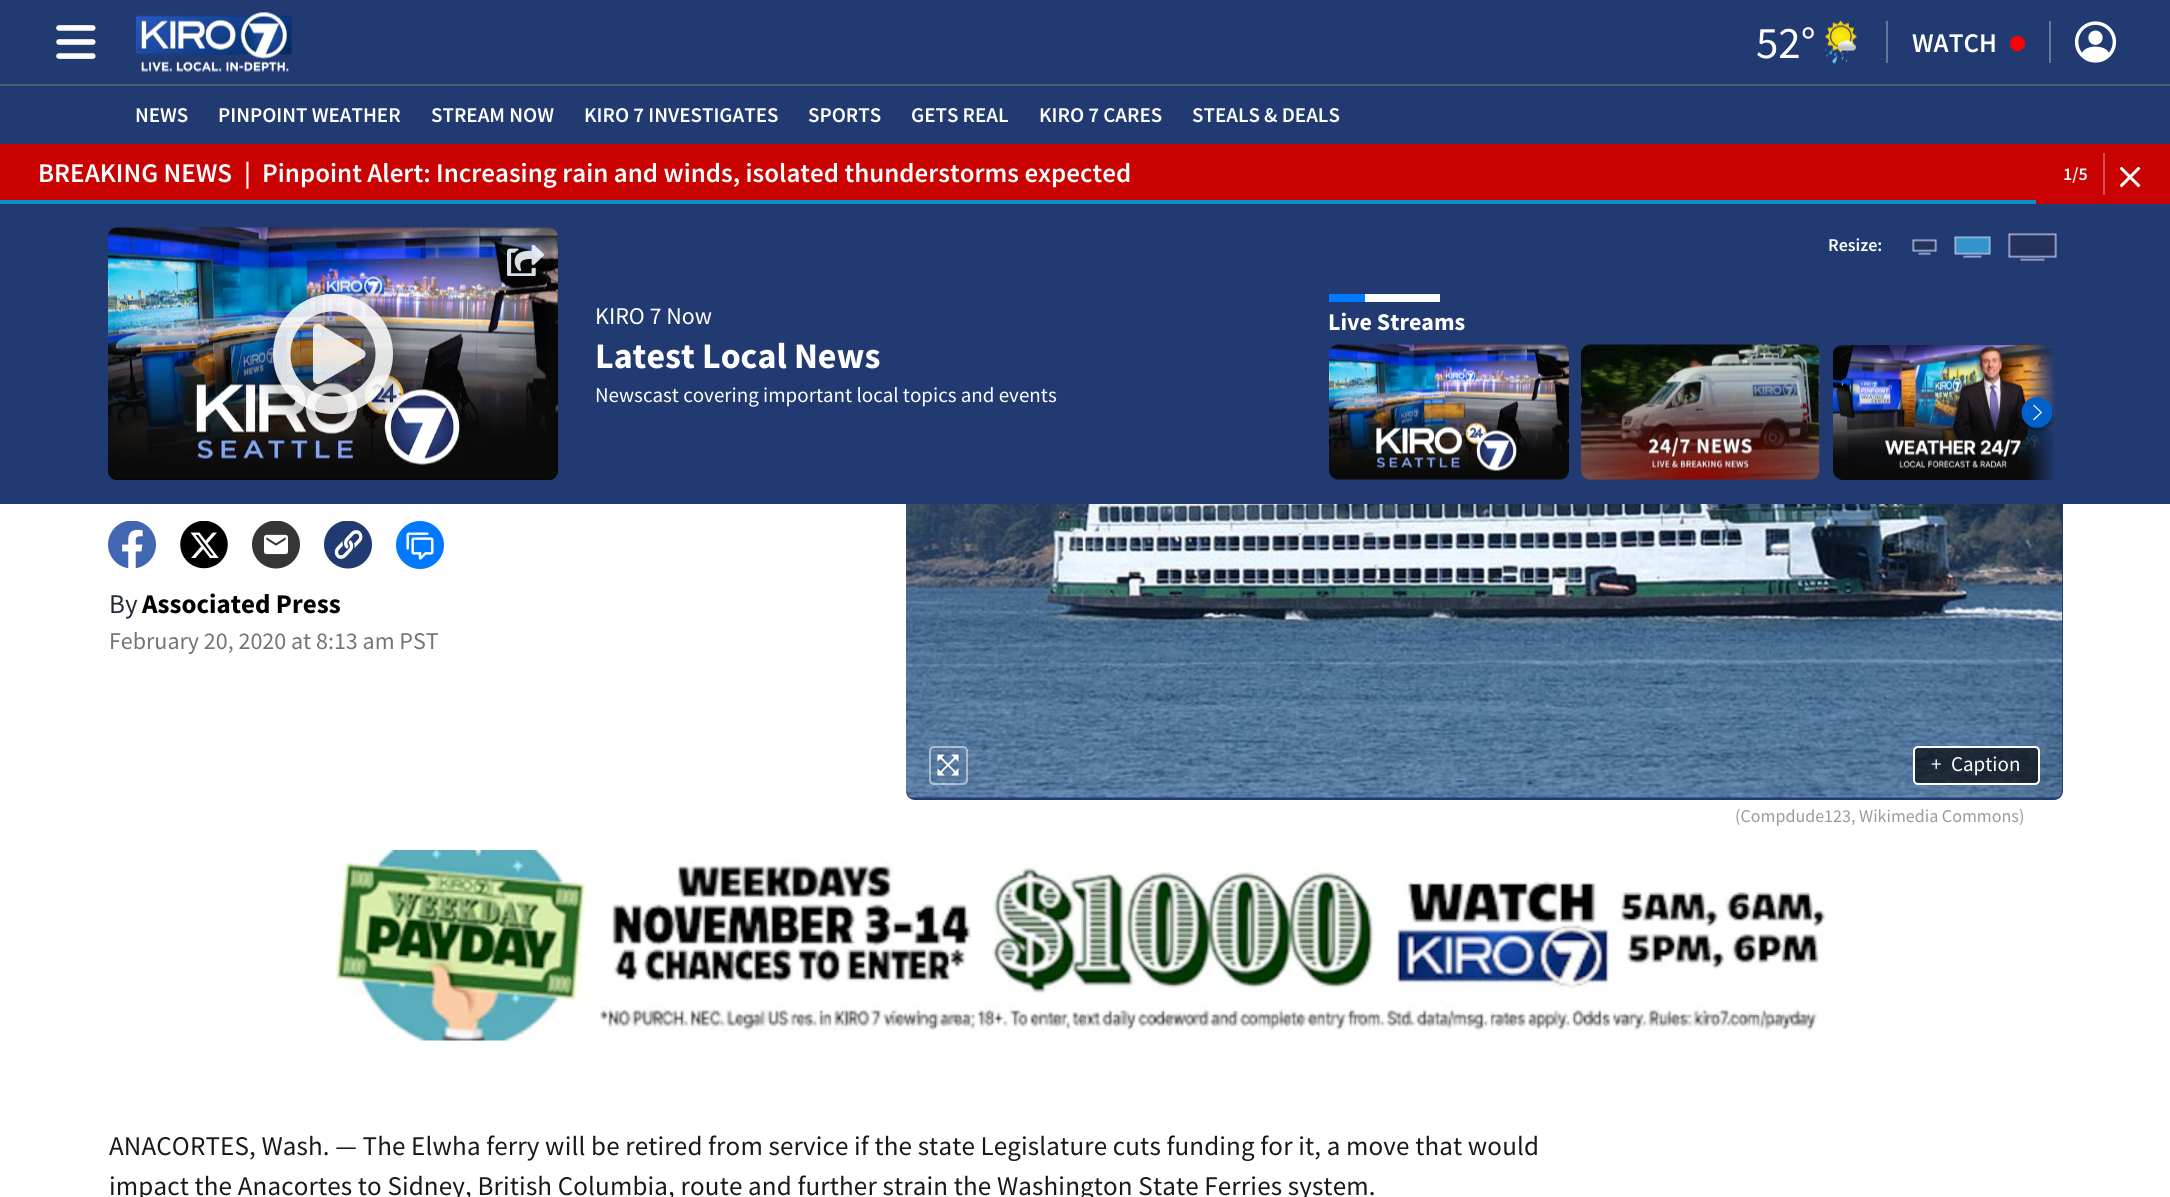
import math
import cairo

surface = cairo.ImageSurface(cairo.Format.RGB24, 2170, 1197)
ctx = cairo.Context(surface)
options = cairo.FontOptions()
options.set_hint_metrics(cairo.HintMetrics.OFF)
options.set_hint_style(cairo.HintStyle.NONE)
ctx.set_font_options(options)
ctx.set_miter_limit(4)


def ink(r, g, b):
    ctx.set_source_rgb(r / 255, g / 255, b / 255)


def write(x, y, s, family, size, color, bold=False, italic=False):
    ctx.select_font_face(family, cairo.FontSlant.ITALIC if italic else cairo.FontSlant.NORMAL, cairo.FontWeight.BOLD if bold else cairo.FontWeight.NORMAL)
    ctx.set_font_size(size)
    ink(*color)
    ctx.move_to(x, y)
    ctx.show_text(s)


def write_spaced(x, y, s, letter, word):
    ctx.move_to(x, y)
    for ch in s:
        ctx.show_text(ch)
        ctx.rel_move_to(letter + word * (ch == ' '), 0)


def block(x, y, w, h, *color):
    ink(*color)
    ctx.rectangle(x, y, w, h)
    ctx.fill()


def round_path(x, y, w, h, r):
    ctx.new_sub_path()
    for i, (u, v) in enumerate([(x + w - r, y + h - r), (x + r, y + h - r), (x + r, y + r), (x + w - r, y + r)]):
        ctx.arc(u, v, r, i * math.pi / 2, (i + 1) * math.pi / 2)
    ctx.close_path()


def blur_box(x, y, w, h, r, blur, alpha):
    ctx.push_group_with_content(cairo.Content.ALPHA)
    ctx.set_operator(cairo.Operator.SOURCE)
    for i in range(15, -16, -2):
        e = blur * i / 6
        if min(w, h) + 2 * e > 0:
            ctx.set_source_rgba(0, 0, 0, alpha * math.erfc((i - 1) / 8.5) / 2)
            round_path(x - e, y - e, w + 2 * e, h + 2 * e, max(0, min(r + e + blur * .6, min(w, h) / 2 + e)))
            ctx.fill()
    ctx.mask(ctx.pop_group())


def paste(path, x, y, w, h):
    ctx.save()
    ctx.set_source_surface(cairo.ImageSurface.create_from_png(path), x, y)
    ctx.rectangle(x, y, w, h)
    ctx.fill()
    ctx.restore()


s1 = dict(family="Source Sans Pro", size=45, color=(255, 255, 255))
s2 = dict(family="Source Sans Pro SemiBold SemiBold", size=27, color=(255, 255, 255))
s3 = dict(family="Source Sans Pro SemiBold SemiBold", size=21, color=(255, 255, 255))
s4 = dict(family="Source Sans Pro SemiBold SemiBold", size=18, color=(255, 255, 255))
s5 = dict(family="Source Sans Pro", size=24, color=(255, 255, 255))
s6 = dict(family="Source Sans Pro", size=36, color=(255, 255, 255), bold=True)
s7 = dict(family="Source Sans Pro", size=21, color=(255, 255, 255))
s8 = dict(family="Source Sans Pro", size=24, color=(255, 255, 255), bold=True)
s9 = dict(family="Source Sans Pro", size=27, color=(35, 43, 57))
s10 = dict(family="Source Sans Pro", size=27, color=(0, 0, 0), bold=True)
s11 = dict(family="Source Sans Pro", size=24, color=(116, 116, 116))
s12 = dict(family="Source Sans Pro", size=18, color=(154, 154, 154))

ink(255, 255, 255)
ctx.paint()
block(0, 0, 2170, 84, 33, 59, 114)
paste("pic1.png", 56, 25, 40, 34)
paste("pic2.png", 135, 12, 157, 60)
write(1756, 58, "52°", **s1)
paste("pic3.png", 1825, 20, 32, 44)
block(1886, 21, 2, 42, 100, 118, 156)
write(1912, 52, "WATCH", **s2)
ink(255, 0, 0)
ctx.new_path()
ctx.arc(2017.5, 43.5, 7.5, 0, 2 * math.pi)
ctx.fill()
block(2049, 21, 2, 42, 100, 118, 156)
paste("pic4.png", 2075, 21, 42, 42)
block(0, 86, 2170, 58, 33, 59, 114)
block(0, 84, 2170, 2, 75, 93, 120)
write(135, 122, "NEWS", **s3)
write(218, 122, "PINPOINT WEATHER", **s3)
write(431, 122, "STREAM NOW", **s3)
write(584, 122, "KIRO 7 INVESTIGATES", **s3)
write(808, 122, "SPORTS", **s3)
write(911, 122, "GETS REAL", **s3)
write(1039, 122, "KIRO 7 CARES", **s3)
write(1192, 122, "STEALS & DEALS", **s3)
ink(33, 59, 114)
round_path(906, 149, 1157, 651, 9)
ctx.fill()
block(0, 144, 2170, 60, 202, 1, 1)
write(38, 182, "BREAKING NEWS", **s2)
write(244, 182, "|", **s2)
write(262, 182, "Pinpoint Alert: Increasing rain and winds, isolated thunderstorms expected", **s2)
block(0, 200, 2036, 4, 2, 144, 205)
write(2063, 180, "1/5", **s4)
block(2103, 153, 2, 42, 218, 77, 77)
paste("pic5.png", 2120, 167, 21, 21)
block(0, 204, 2170, 300, 33, 59, 114)
ink(0, 0, 0)
round_path(108, 228, 450, 252, 9)
ctx.fill()
paste("pic7.png", 108, 227, 450, 253)
ctx.save()
ctx.rectangle(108, 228, 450, 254)
ctx.clip()
ctx.set_fill_rule(cairo.FillRule.EVEN_ODD)
ctx.new_path()
ctx.move_to(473, 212)
ctx.line_to(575, 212)
ctx.line_to(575, 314)
ctx.line_to(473, 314)
ctx.close_path()
ctx.move_to(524, 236)
ctx.curve_to(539, 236, 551, 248, 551, 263)
ctx.curve_to(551, 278, 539, 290, 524, 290)
ctx.curve_to(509, 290, 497, 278, 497, 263)
ctx.curve_to(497, 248, 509, 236, 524, 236)
ctx.close_path()
ctx.clip()
ink(0, 0, 0)
blur_box(491, 230, 66, 66, 33, 5.5, 0.1)
ctx.restore()
ctx.set_source_rgba(0, 0, 0, 0.1)
ctx.arc(524, 263, 27, 0, 2 * math.pi)
ctx.fill()
paste("pic6.png", 507, 245, 37, 31)
ctx.save()
ctx.set_fill_rule(cairo.FillRule.EVEN_ODD)
ctx.new_path()
ctx.move_to(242, 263)
ctx.line_to(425, 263)
ctx.line_to(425, 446)
ctx.line_to(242, 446)
ctx.close_path()
ctx.move_to(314, 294)
ctx.line_to(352, 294)
ctx.curve_to(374.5, 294, 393, 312.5, 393, 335)
ctx.line_to(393, 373)
ctx.curve_to(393, 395.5, 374.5, 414, 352, 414)
ctx.line_to(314, 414)
ctx.curve_to(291.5, 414, 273, 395.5, 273, 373)
ctx.line_to(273, 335)
ctx.curve_to(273, 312.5, 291.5, 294, 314, 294)
ctx.close_path()
ctx.clip()
ink(0, 0, 0)
blur_box(266, 287, 135, 135, 48, 7.5, 0.21)
ctx.restore()
ctx.set_source_rgba(0, 0, 0, 0.21)
round_path(273, 294, 120, 120, 41)
ctx.fill()
paste("pic8.png", 273, 294, 120, 120)
write(1828, 251, "Resize:", **s4)
paste("pic9.png", 1912, 239, 25, 16)
paste("pic10.png", 1954, 236, 37, 22)
paste("pic11.png", 2008, 233, 49, 28)
write(595, 324, "KIRO 7 Now", **s5)
write(595, 368, "Latest Local News", **s6)
write(595, 402, "Newscast covering important local topics and events", **s7)
block(1365, 294, 75, 8, 255, 255, 255)
block(1329, 294, 36, 8, 0, 121, 255)
write(1328, 330, "Live Streams", **s8)
paste("pic12.png", 1329, 344, 240, 136)
paste("pic13.png", 1581, 344, 239, 136)
paste("pic14.png", 1833, 345, 223, 135)
gradient = cairo.LinearGradient(2027, 405, 2063, 405)
gradient.add_color_stop_rgba(0, 0.129, 0.231, 0.447, 0)
gradient.add_color_stop_rgba(0.8, 0.129, 0.231, 0.447, 1)
ctx.set_source(gradient)
ctx.rectangle(2028, 345, 28, 135)
ctx.fill()
paste("pic15.png", 2021, 397, 33, 35)
paste("pic16.png", 108, 521, 48, 48)
paste("pic17.png", 180, 521, 48, 48)
paste("pic18.png", 252, 521, 48, 48)
paste("pic19.png", 324, 521, 48, 48)
ink(0, 121, 255)
ctx.arc(420, 545, 24, 0, 2 * math.pi)
ctx.fill()
paste("pic20.png", 406, 532, 28, 28)
write(109, 613, "By", **s9)
write(142, 613, "Associated Press", **s10)
write(109, 649, "February 20, 2020 at 8:13 am PST", **s11)
paste("pic21.png", 906, 504, 1157, 294)
round_path(930, 747, 37, 37, 4)
ctx.set_source_rgba(1, 1, 1, 0.5)
ctx.stroke()
paste("pic22.png", 937, 754, 22, 22)
ctx.set_source_rgba(0, 0, 0, 0.65)
round_path(1914, 747, 125, 37, 4)
ctx.fill_preserve()
ink(255, 255, 255)
ctx.stroke()
write(1931, 771, "+", **s7)
write(1951, 771, "Caption", **s7)
write(1735, 822, "(Compdude123, Wikimedia Commons)", **s12)
paste("pic23.png", 335, 850, 1491, 191)
ctx.set_font_size(27)
ink(25, 25, 25)
write_spaced(109, 1155, "ANACORTES, Wash. — The Elwha ferry will be retired from service if the state Legislature cuts funding for it, a move that would", 0.15, 0)
write_spaced(109, 1195, "impact the Anacortes to Sidney, British Columbia, route and further strain the Washington State Ferries system.", 0.15, 0)
surface.write_to_png("screenshot.png")
